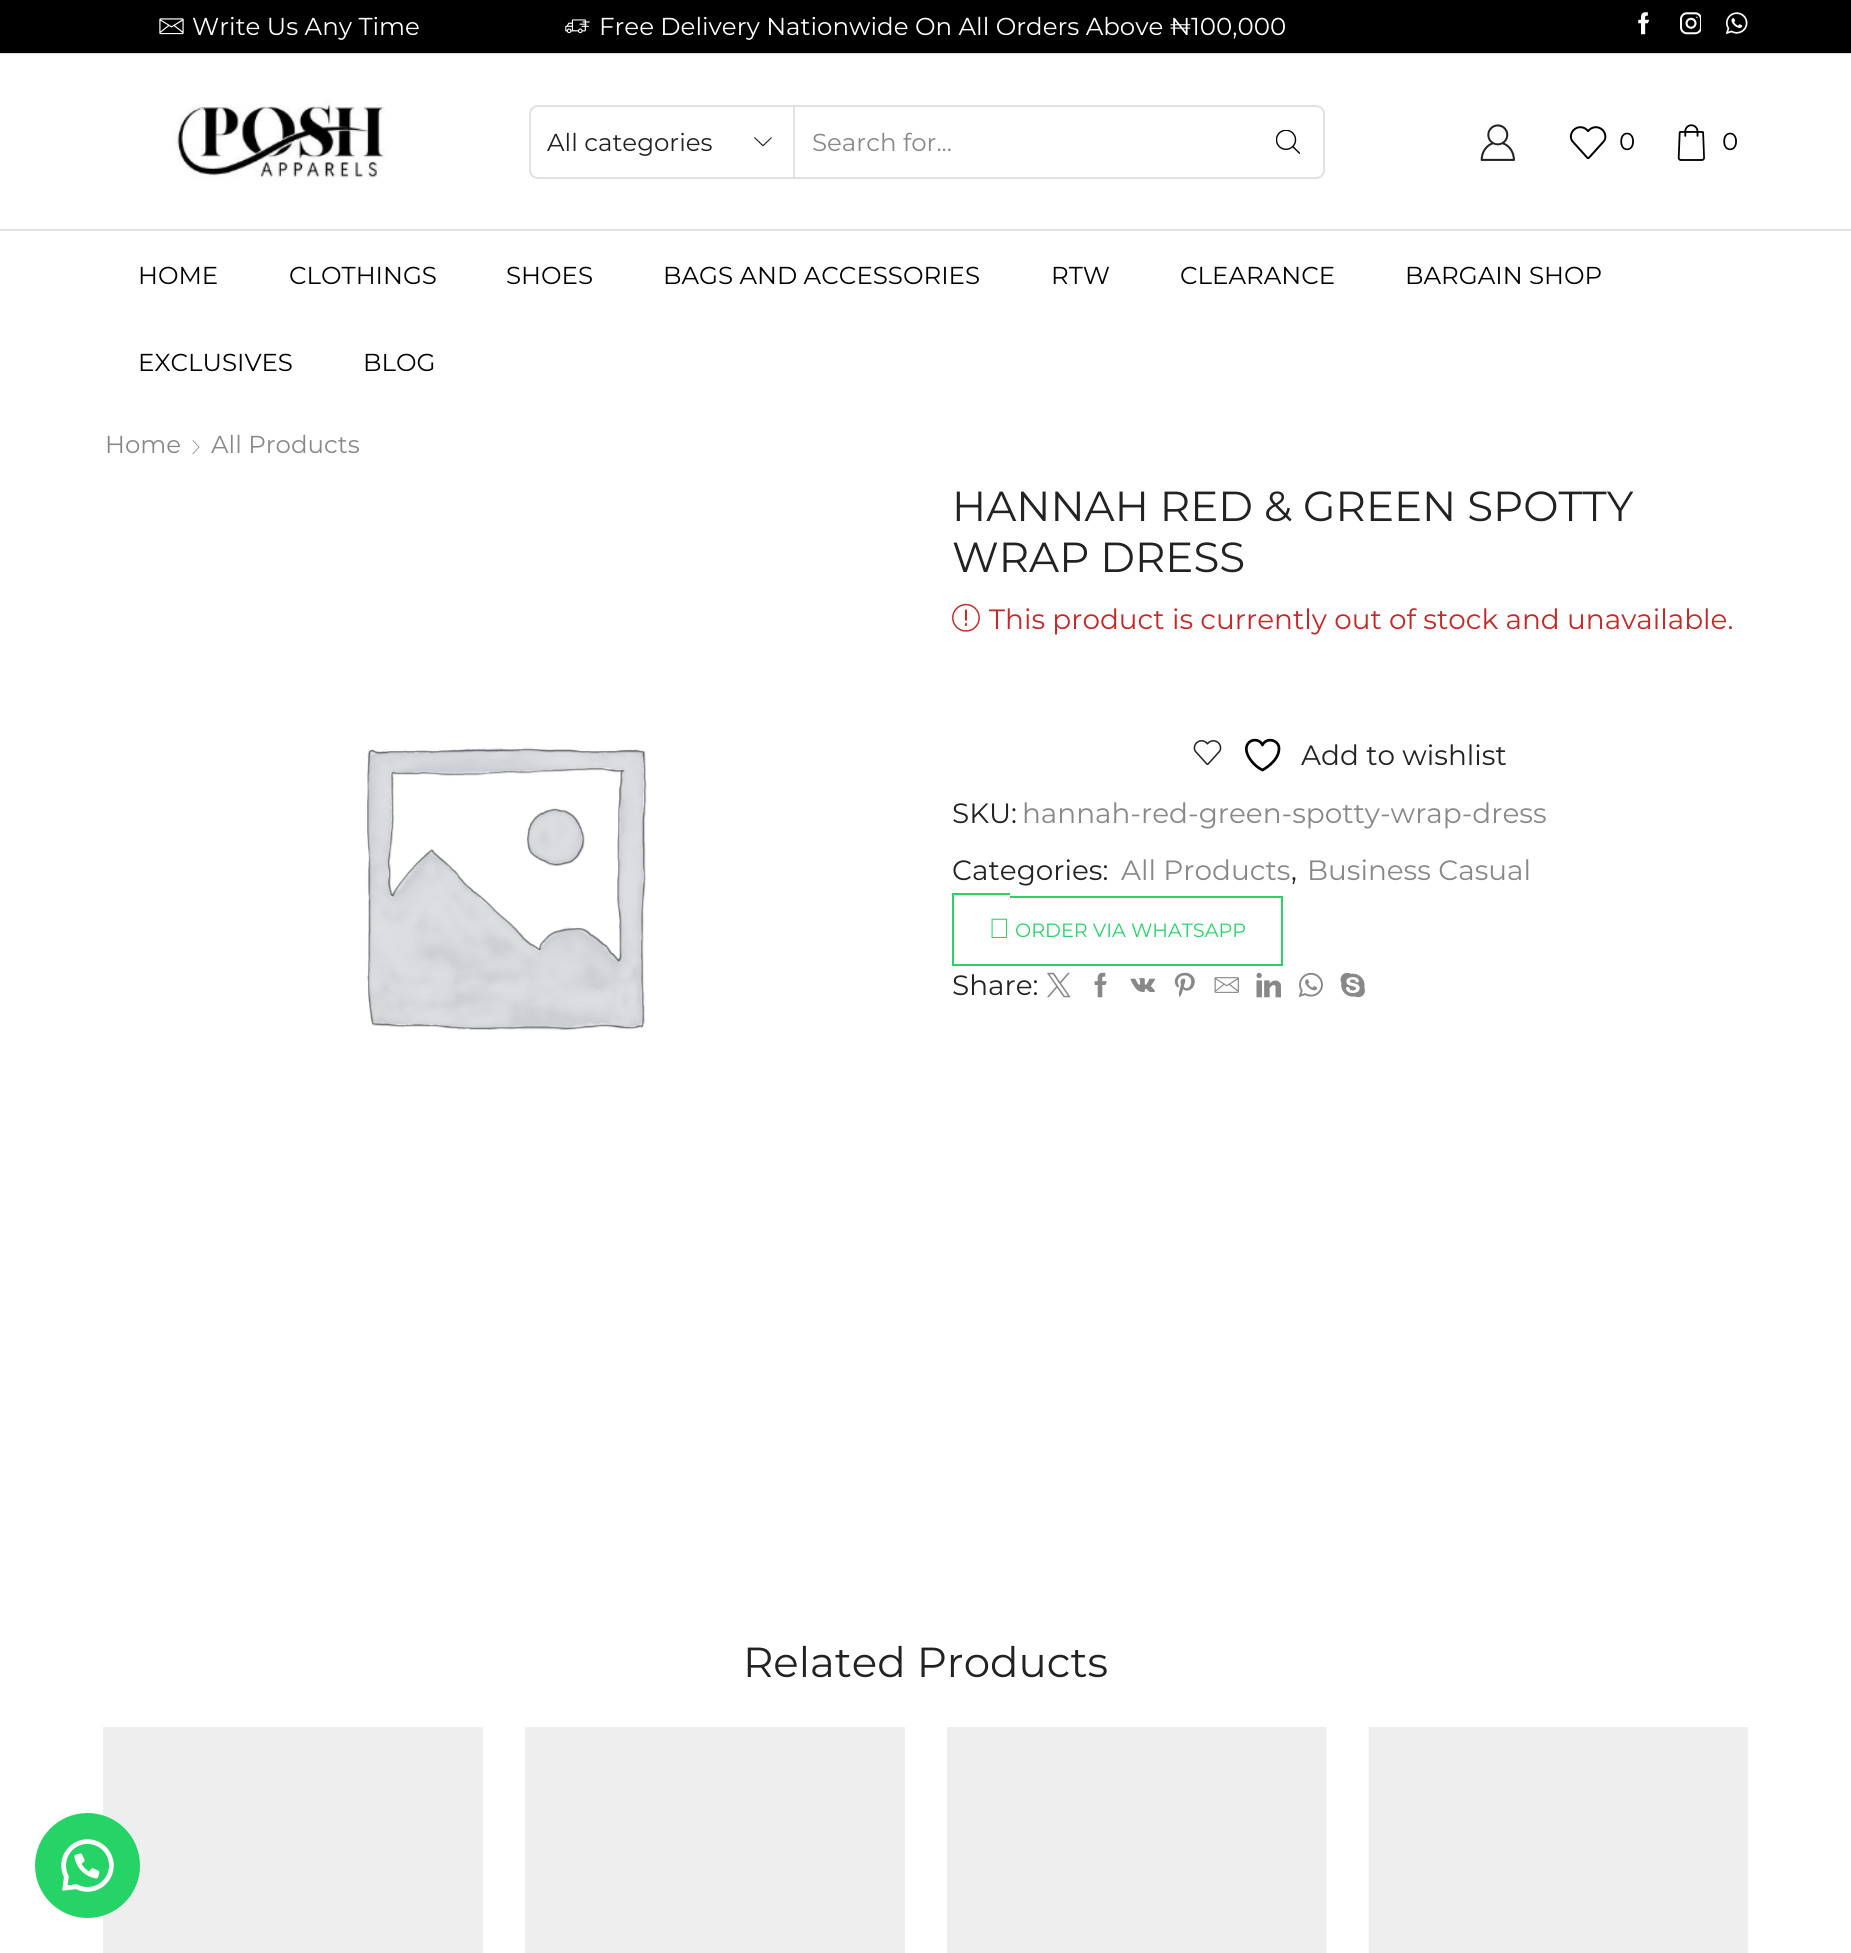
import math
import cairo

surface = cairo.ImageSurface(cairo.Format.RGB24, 1851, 1953)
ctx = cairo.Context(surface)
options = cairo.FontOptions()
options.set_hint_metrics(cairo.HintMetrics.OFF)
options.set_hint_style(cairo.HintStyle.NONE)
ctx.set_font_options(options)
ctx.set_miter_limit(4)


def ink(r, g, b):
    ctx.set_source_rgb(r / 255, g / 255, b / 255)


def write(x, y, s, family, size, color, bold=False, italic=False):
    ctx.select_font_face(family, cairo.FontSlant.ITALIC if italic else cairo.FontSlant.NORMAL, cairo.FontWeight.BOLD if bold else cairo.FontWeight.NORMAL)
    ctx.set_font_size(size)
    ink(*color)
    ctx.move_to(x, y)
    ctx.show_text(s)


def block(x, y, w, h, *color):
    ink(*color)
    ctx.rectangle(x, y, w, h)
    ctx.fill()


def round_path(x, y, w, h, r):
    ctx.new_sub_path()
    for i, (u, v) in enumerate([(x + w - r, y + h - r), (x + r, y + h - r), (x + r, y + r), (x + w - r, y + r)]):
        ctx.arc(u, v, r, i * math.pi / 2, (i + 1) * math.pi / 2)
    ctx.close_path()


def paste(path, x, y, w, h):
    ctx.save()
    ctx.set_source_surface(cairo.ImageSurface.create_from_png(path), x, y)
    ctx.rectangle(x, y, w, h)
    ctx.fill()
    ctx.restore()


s1 = dict(family="Montserrat Thin", size=24.5, color=(255, 255, 255))
s2 = dict(family="Montserrat Thin", size=24.5, color=(34, 34, 34))
s3 = dict(family="Montserrat Thin", size=24.5, color=(136, 136, 136))
s4 = dict(family="Montserrat Thin", size=24.5, color=(0, 0, 0))
s5 = dict(family="Montserrat Thin", size=42, color=(34, 34, 34))
s6 = dict(family="Montserrat Thin", size=27.9, color=(198, 40, 40))
s7 = dict(family="Montserrat Thin", size=27.9, color=(34, 34, 34))
s8 = dict(family="Montserrat Thin", size=27.9, color=(136, 136, 136))
s9 = dict(family="Montserrat Thin", size=19.25, color=(37, 211, 102))

ink(255, 255, 255)
ctx.paint()
block(0, 0, 1851, 53, 0, 0, 0)
block(0, 53, 1851, 1, 225, 225, 225)
paste("pic1.png", 159, 18, 25, 17)
write(192, 35, "Write Us Any Time", **s1)
paste("pic2.png", 565, 19, 25, 15)
write(599, 35, "Free Delivery Nationwide On All Orders Above ₦100,000", **s1)
paste("pic3.png", 1638, 12, 12, 23)
paste("pic4.png", 1680, 12, 21, 23)
paste("pic5.png", 1726, 12, 22, 22)
block(0, 229, 1851, 2, 225, 225, 225)
paste("pic6.png", 173, 100, 213, 78)
round_path(530, 106, 794, 72, 8)
ctx.stroke()
paste("pic7.png", 754, 137, 18, 10)
block(793, 107, 2, 70, 225, 225, 225)
write(547, 151, "All categories", **s2)
write(812, 151, "Search for...", **s3)
paste("pic8.png", 1276, 130, 24, 24)
paste("pic9.png", 1480, 124, 35, 37)
paste("pic10.png", 1569, 126, 38, 34)
write(1619, 150, "0", **s4)
paste("pic11.png", 1677, 124, 28, 37)
write(1722, 150, "0", **s4)
write(138, 284, "HOME", **s4)
write(289, 284, "CLOTHINGS", **s4)
write(506, 284, "SHOES", **s4)
write(663, 284, "BAGS AND ACCESSORIES", **s4)
write(1051, 284, "RTW", **s4)
write(1180, 284, "CLEARANCE", **s4)
write(1405, 284, "BARGAIN SHOP", **s4)
write(138, 371, "EXCLUSIVES", **s4)
write(363, 371, "BLOG", **s4)
write(105, 453, "Home", **s3)
paste("pic12.png", 192, 440, 8, 14)
write(211, 453, "All Products", **s3)
paste("pic13.png", 366, 748, 281, 283)
write(952, 521, "HANNAH RED & GREEN SPOTTY", **s5)
write(952, 572, "WRAP DRESS", **s5)
paste("pic14.png", 952, 603, 28, 29)
write(989, 629, "This product is currently out of stock and unavailable.", **s6)
paste("pic15.png", 1193, 740, 29, 25)
ctx.new_path()
ctx.move_to(1279, 748.5)
ctx.curve_to(1279, 739.5, 1266, 737, 1262.5, 745)
ctx.curve_to(1258, 735, 1239.5, 741, 1249, 757.5)
ctx.curve_to(1252, 762.5, 1257, 767.5, 1262.5, 770)
ctx.curve_to(1262.5, 770, 1279, 761.5, 1279, 748.5)
ctx.close_path()
ink(0, 0, 0)
ctx.set_line_width(2.7)
ctx.set_line_cap(cairo.LineCap.ROUND)
ctx.set_line_join(cairo.LineJoin.ROUND)
ctx.stroke()
write(1301, 765, "Add to wishlist", **s7)
write(952, 823, "SKU:", **s7)
write(1022, 823, "hannah-red-green-spotty-wrap-dress", **s8)
write(952, 880, "Categories:", **s7)
write(1121, 880, "All Products", **s8)
write(1291, 880, ",", **s7)
write(1307, 880, "Business Casual", **s8)
block(952, 893, 58, 2, 37, 211, 102)
block(952, 964, 58, 2, 37, 211, 102)
block(952, 893, 2, 73, 37, 211, 102)
block(1010, 896, 273, 2, 37, 211, 102)
block(1281, 896, 2, 70, 37, 211, 102)
block(1010, 964, 273, 2, 37, 211, 102)
paste("pic16.png", 991, 918, 16, 20)
write(1015, 937, "ORDER VIA WHATSAPP", **s9)
write(952, 995, "Share:", **s7)
paste("pic17.png", 1047, 972, 24, 26)
paste("pic18.png", 1094, 972, 13, 26)
paste("pic19.png", 1130, 978, 25, 14)
paste("pic20.png", 1174, 972, 21, 26)
paste("pic21.png", 1214, 977, 25, 16)
paste("pic22.png", 1256, 972, 25, 26)
paste("pic23.png", 1298, 972, 25, 26)
paste("pic24.png", 1340, 972, 25, 26)
write(743, 1677, "Related Products", **s5)
block(103, 1727, 380, 226, 238, 238, 238)
block(525, 1727, 380, 226, 238, 238, 238)
paste("pic25.png", 947, 1727, 380, 226)
paste("pic26.png", 1368, 1727, 381, 226)
ink(37, 211, 102)
ctx.arc(87.5, 1865.5, 52.5, 0, 2 * math.pi)
ctx.fill()
paste("pic27.png", 61, 1839, 53, 53)
surface.write_to_png("screenshot.png")
